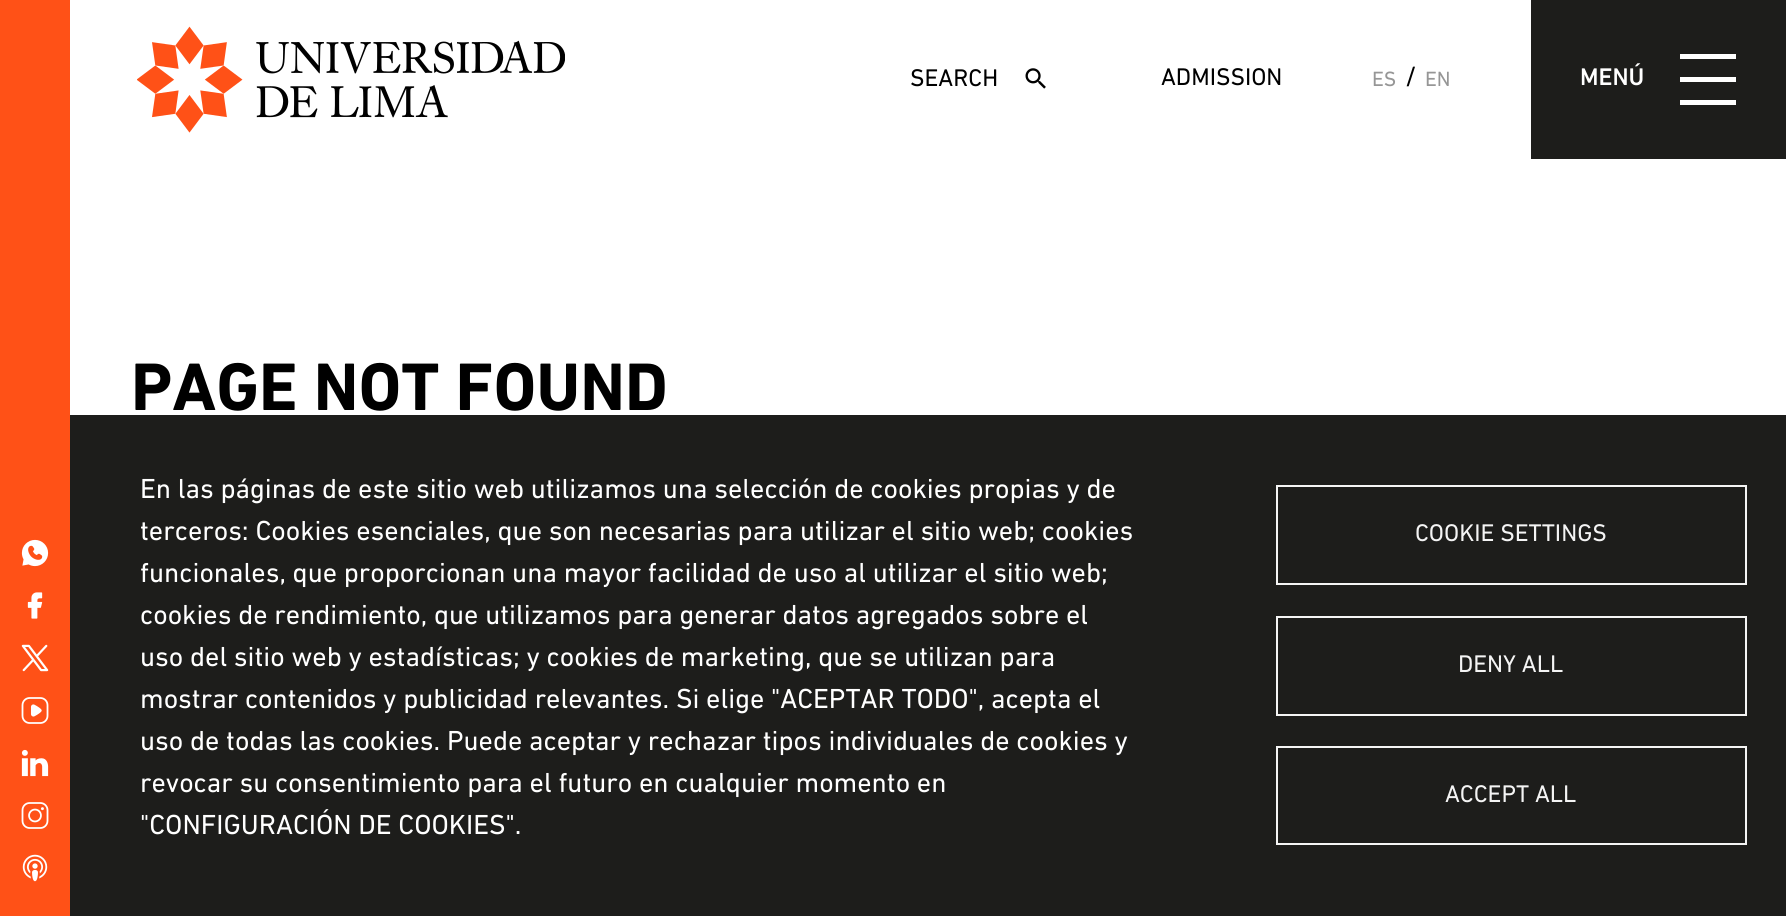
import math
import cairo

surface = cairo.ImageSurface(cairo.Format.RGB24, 1786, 916)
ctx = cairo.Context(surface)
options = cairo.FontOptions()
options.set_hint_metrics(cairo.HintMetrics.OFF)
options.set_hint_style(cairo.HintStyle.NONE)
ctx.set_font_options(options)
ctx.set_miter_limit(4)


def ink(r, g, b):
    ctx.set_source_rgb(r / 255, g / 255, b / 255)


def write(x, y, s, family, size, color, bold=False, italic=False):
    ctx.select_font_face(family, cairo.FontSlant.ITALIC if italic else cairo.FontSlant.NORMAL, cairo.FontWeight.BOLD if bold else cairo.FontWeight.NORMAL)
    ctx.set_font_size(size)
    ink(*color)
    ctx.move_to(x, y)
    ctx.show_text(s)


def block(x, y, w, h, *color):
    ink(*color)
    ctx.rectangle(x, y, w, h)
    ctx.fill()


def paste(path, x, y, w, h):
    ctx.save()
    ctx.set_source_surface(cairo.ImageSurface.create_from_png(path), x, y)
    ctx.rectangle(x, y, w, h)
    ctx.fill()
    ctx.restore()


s1 = dict(family="DIN Next", size=24.5, color=(0, 0, 0))
s2 = dict(family="DIN Next", size=21, color=(150, 150, 150))
s3 = dict(family="DIN Next", size=28, color=(0, 0, 0))
s4 = dict(family="DIN Next Medium", size=24.5, color=(255, 255, 255))
s5 = dict(family="DIN Next", size=68.25, color=(0, 0, 0), bold=True)
s6 = dict(family="DIN Next", size=28, color=(255, 255, 255))
s7 = dict(family="DIN Next", size=24.5, color=(244, 244, 244))

ink(255, 255, 255)
ctx.paint()
block(0, 0, 70, 916, 255, 81, 23)
paste("pic1.png", 21, 539, 28, 28)
paste("pic2.png", 27, 592, 16, 27)
paste("pic3.png", 21, 644, 28, 28)
paste("pic4.png", 21, 697, 28, 27)
paste("pic5.png", 21, 749, 28, 28)
paste("pic6.png", 21, 802, 28, 27)
paste("pic7.png", 22, 854, 26, 28)
paste("pic8.png", 137, 26, 428, 107)
write(910, 86, "SEARCH", **s1)
paste("pic9.png", 1025, 68, 21, 21)
write(1161, 85, "ADMISSION", **s1)
write(1372, 86, "ES", **s2)
write(1405, 86, "/", **s3)
write(1425, 86, "EN", **s2)
block(1531, 0, 255, 159, 29, 29, 27)
write(1580, 85, "MENÚ", **s4)
block(1680, 54, 56, 5, 255, 255, 255)
block(1680, 77, 56, 5, 255, 255, 255)
block(1680, 100, 56, 5, 255, 255, 255)
write(131, 410, "PAGE NOT FOUND", **s5)
block(70, 415, 1716, 501, 29, 29, 27)
write(140, 498, "En las páginas de este sitio web utilizamos una selección de cookies propias y de", **s6)
write(140, 540, "terceros: Cookies esenciales, que son necesarias para utilizar el sitio web; cookies", **s6)
write(140, 582, "funcionales, que proporcionan una mayor facilidad de uso al utilizar el sitio web;", **s6)
write(140, 624, "cookies de rendimiento, que utilizamos para generar datos agregados sobre el", **s6)
write(140, 666, "uso del sitio web y estadísticas; y cookies de marketing, que se utilizan para", **s6)
write(140, 708, "mostrar contenidos y publicidad relevantes. Si elige \"ACEPTAR TODO\", acepta el", **s6)
write(140, 750, "uso de todas las cookies. Puede aceptar y rechazar tipos individuales de cookies y", **s6)
write(140, 792, "revocar su consentimiento para el futuro en cualquier momento en", **s6)
write(140, 834, "\"CONFIGURACIÓN DE COOKIES\".", **s6)
ctx.rectangle(1277, 486, 469, 98)
ink(244, 244, 244)
ctx.stroke()
write(1415, 541, "COOKIE SETTINGS", **s7)
ctx.rectangle(1277, 617, 469, 98)
ctx.stroke()
write(1458, 672, "DENY ALL", **s7)
ctx.rectangle(1277, 747, 469, 97)
ctx.stroke()
write(1445, 802, "ACCEPT ALL", **s7)
surface.write_to_png("screenshot.png")
